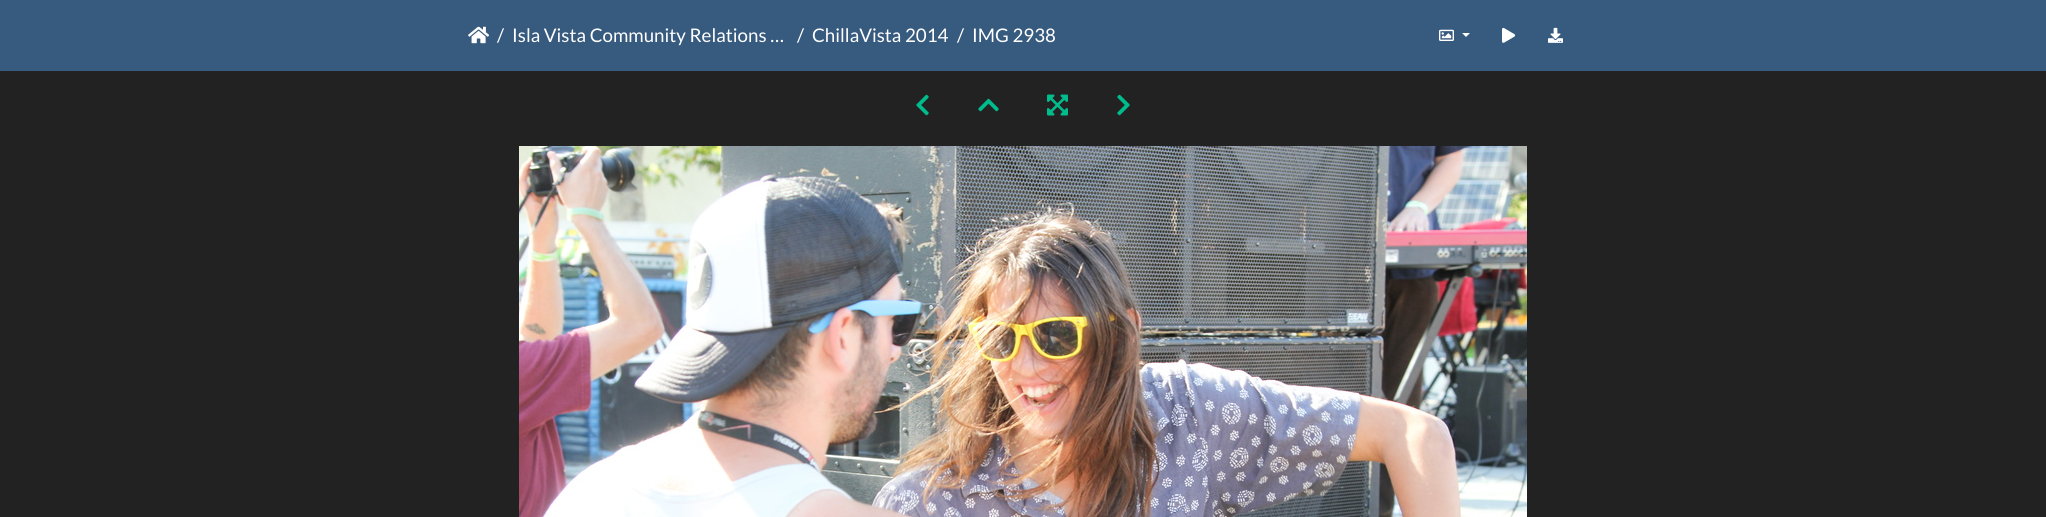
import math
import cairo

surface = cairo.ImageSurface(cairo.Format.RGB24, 2046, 517)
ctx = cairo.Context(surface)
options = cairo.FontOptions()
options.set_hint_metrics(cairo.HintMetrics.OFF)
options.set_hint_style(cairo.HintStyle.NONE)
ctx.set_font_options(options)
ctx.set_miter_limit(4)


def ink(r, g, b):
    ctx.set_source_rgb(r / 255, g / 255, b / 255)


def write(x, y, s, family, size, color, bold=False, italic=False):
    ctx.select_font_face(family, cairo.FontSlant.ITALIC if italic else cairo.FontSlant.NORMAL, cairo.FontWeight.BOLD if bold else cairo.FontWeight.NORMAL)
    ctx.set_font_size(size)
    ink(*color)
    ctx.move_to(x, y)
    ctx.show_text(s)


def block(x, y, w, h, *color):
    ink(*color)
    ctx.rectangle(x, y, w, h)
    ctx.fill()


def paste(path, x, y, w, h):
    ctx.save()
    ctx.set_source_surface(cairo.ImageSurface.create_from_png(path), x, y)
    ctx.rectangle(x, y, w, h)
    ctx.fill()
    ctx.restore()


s1 = dict(family="Lato", size=18.75, color=(255, 255, 255))

ink(34, 34, 34)
ctx.paint()
block(0, 0, 2046, 71, 55, 90, 127)
paste("pic1.png", 468, 26, 21, 18)
write(497, 42, "/", **s1)
write(512, 42, "Isla Vista Community Relations …", **s1)
write(797, 42, "/", **s1)
write(812, 42, "ChillaVista 2014", **s1)
write(957, 42, "/", **s1)
write(972, 42, "IMG 2938", **s1)
paste("pic2.png", 1439, 29, 15, 12)
ctx.new_path()
ctx.move_to(1462, 33)
ctx.line_to(1470, 33)
ctx.line_to(1466, 37)
ctx.close_path()
ctx.fill()
paste("pic3.png", 1502, 27, 14, 16)
paste("pic4.png", 1548, 27, 15, 16)
paste("pic5.png", 916, 94, 13, 22)
paste("pic6.png", 978, 98, 21, 14)
paste("pic7.png", 1047, 94, 21, 22)
paste("pic8.png", 1117, 94, 13, 22)
paste("pic9.png", 519, 146, 1008, 371)
surface.write_to_png("screenshot.png")
